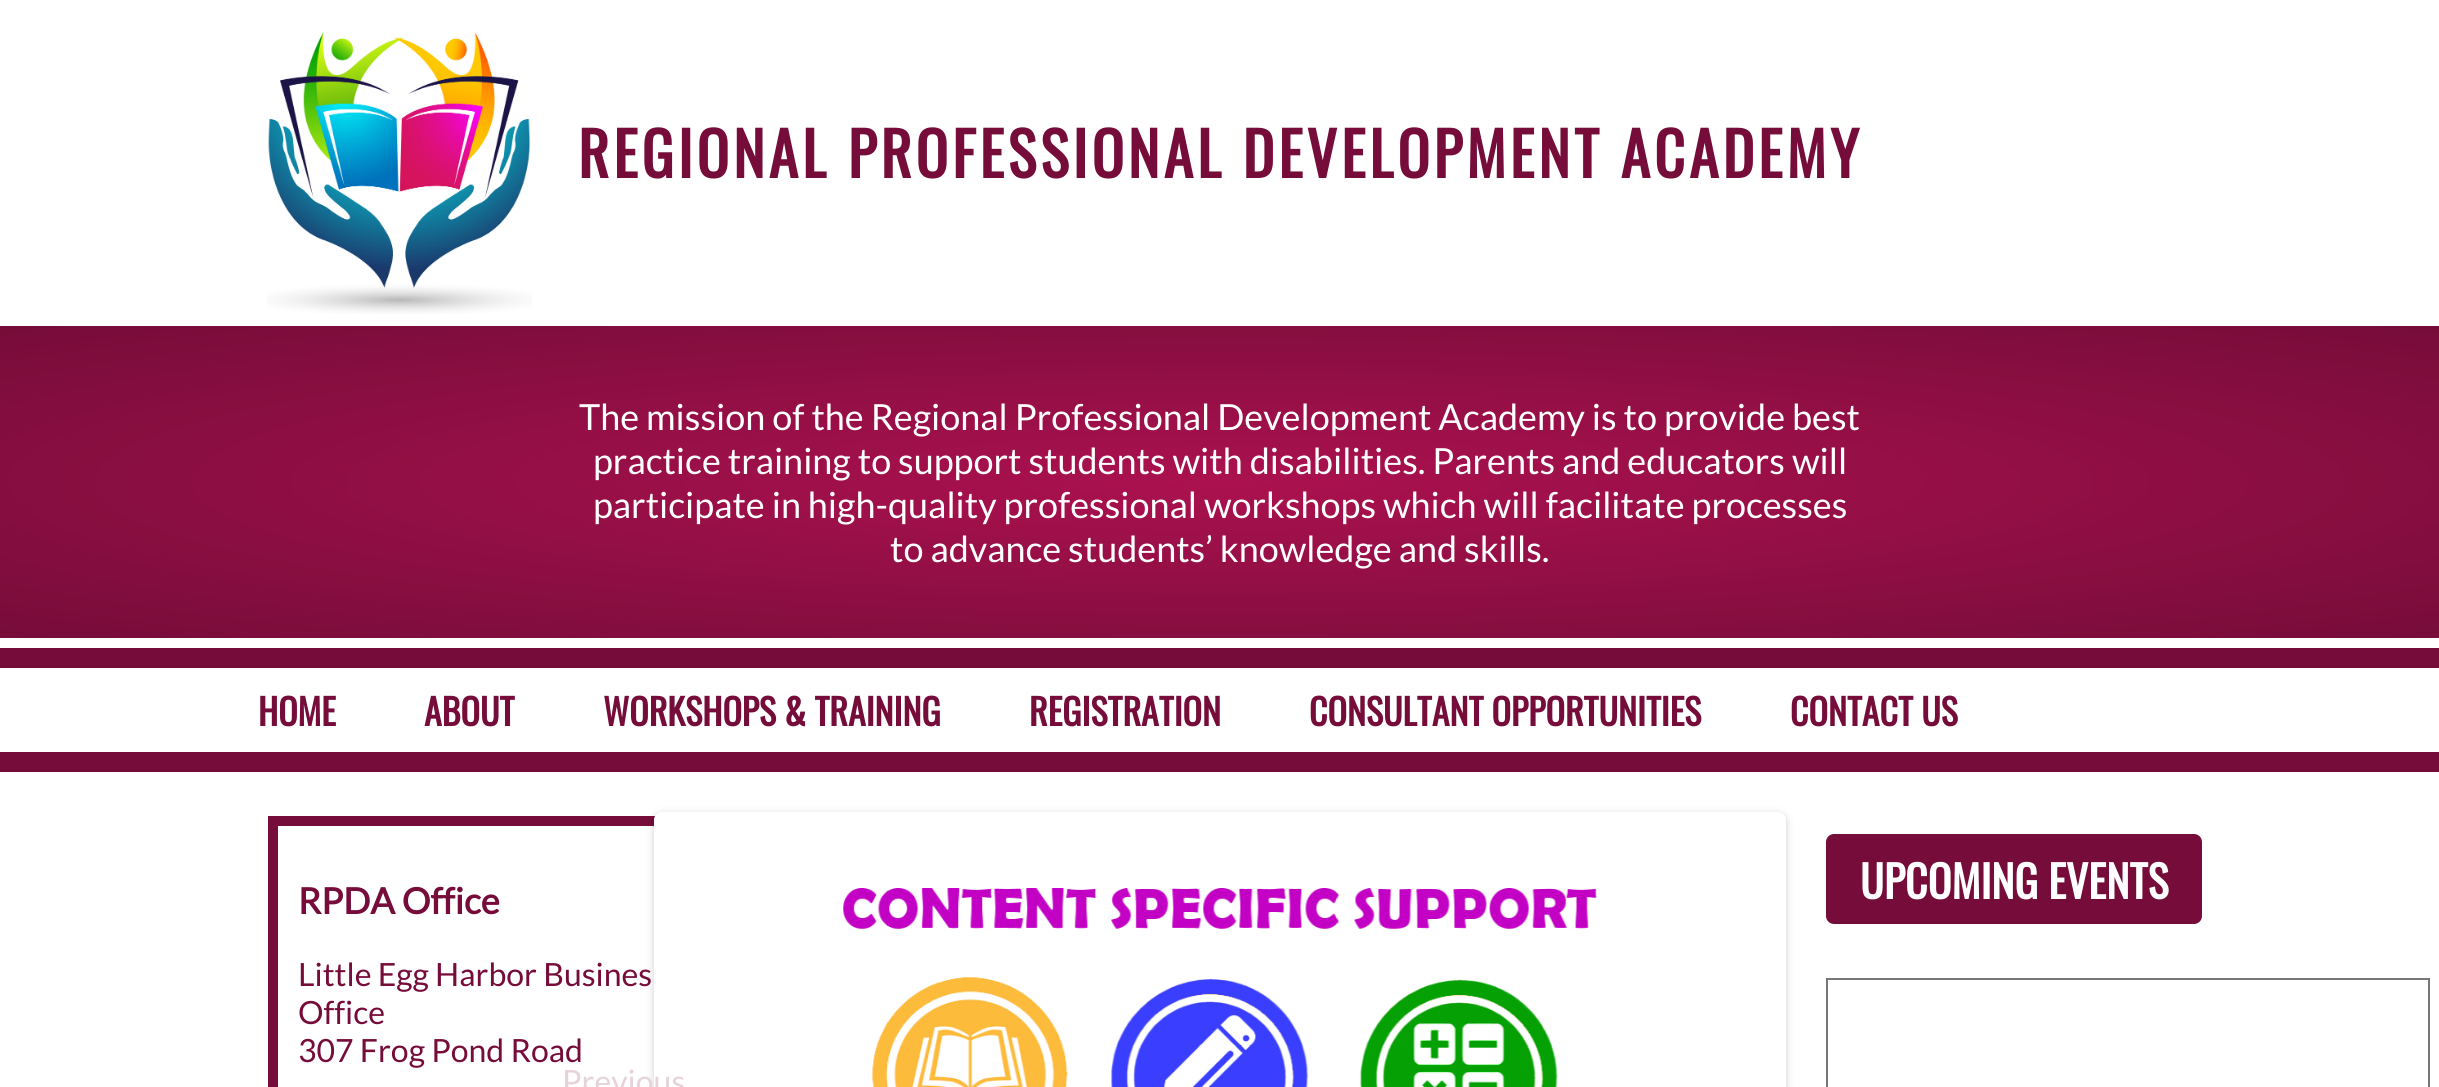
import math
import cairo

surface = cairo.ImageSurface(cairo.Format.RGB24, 2439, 1087)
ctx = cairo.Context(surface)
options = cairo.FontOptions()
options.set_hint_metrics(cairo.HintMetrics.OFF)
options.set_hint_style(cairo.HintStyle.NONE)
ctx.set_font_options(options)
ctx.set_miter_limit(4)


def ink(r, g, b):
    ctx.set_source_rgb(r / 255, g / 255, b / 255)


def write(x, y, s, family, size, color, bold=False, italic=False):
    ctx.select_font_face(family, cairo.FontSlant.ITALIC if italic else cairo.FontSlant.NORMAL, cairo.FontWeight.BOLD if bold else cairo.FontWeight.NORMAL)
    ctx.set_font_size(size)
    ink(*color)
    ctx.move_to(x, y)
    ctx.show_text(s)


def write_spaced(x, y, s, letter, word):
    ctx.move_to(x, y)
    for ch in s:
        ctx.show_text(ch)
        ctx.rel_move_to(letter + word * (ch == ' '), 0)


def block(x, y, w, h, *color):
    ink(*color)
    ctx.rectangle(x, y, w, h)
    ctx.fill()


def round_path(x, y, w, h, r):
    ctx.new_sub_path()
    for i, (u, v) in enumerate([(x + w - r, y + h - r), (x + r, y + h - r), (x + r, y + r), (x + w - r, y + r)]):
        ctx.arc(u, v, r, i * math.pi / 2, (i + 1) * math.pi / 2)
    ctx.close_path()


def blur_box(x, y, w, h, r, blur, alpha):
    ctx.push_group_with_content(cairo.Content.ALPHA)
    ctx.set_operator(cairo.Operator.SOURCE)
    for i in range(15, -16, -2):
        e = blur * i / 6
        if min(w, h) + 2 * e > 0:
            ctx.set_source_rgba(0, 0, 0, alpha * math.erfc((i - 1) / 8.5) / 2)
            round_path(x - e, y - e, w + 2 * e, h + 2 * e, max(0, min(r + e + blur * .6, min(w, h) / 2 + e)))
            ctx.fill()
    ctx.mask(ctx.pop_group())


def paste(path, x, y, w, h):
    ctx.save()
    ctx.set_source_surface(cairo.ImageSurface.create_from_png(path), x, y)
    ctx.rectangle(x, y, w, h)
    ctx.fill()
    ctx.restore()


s1 = dict(family="Lato", size=36, color=(255, 255, 255))
s2 = dict(family="Oswald", size=36, color=(118, 12, 57), bold=True)
s3 = dict(family="Oswald", size=44, color=(255, 255, 255), bold=True)
s4 = dict(family="Lato", size=36, color=(118, 12, 57), bold=True)
s5 = dict(family="Lato", size=32, color=(118, 12, 57))
s6 = dict(family="Lato", size=32, color=(230, 210, 219))

ink(255, 255, 255)
ctx.paint()
paste("pic1.png", 267, 32, 265, 282)
ctx.select_font_face("Oswald", cairo.FontSlant.NORMAL, cairo.FontWeight.BOLD)
ctx.set_font_size(60)
ink(118, 12, 57)
write_spaced(578, 178, "REGIONAL PROFESSIONAL DEVELOPMENT ACADEMY", 4, 0)
gradient = cairo.RadialGradient(0, 0, 0, 0, 0, 1)
gradient.set_matrix(cairo.Matrix(1 / 1725, 0, 0, 1 / 221, -1 * 1220 / 1725, -1 * 482 / 221))
gradient.add_color_stop_rgba(0, 0.671, 0.067, 0.31, 1)
gradient.add_color_stop_rgba(1, 0.463, 0.047, 0.224, 1)
ctx.set_source(gradient)
ctx.rectangle(0, 326, 2439, 312)
ctx.fill()
write(579, 430, "The mission of the Regional Professional Development Academy is to provide best", **s1)
write(593, 474, "practice training to support students with disabilities. Parents and educators will", **s1)
write(593, 518, "participate in high-quality professional workshops which will facilitate processes", **s1)
write(890, 562, "to advance students’ knowledge and skills.", **s1)
block(0, 648, 2439, 20, 118, 12, 57)
block(0, 752, 2439, 20, 118, 12, 57)
write(258, 726, "HOME", **s2)
write(424, 726, "ABOUT", **s2)
write(603, 726, "WORKSHOPS & TRAINING", **s2)
write(1029, 726, "REGISTRATION", **s2)
write(1309, 726, "CONSULTANT OPPORTUNITIES", **s2)
write(1790, 726, "CONTACT US", **s2)
round_path(1826, 834, 376, 90, 8)
ctx.fill()
write(1860, 899, "UPCOMING EVENTS", **s3)
ctx.rectangle(1827, 979, 602, 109)
ink(119, 119, 119)
ctx.stroke()
ctx.rectangle(273, 821, 436, 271)
ink(118, 12, 57)
ctx.set_line_width(10)
ctx.stroke()
write(298, 914, "RPDA Office", **s4)
write(298, 986, "Little Egg Harbor Busines", **s5)
write(298, 1024, "Office", **s5)
write(298, 1062, "307 Frog Pond Road", **s5)
ink(0, 0, 0)
blur_box(654, 814, 1132, 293, 8, 4, 0.2)
ink(255, 255, 255)
round_path(658, 816, 1124, 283, 4)
ctx.fill_preserve()
ctx.set_line_width(8)
ctx.stroke()
write(562, 1093, "Previous", **s6)
paste("pic2.png", 843, 888, 754, 199)
surface.write_to_png("screenshot.png")
